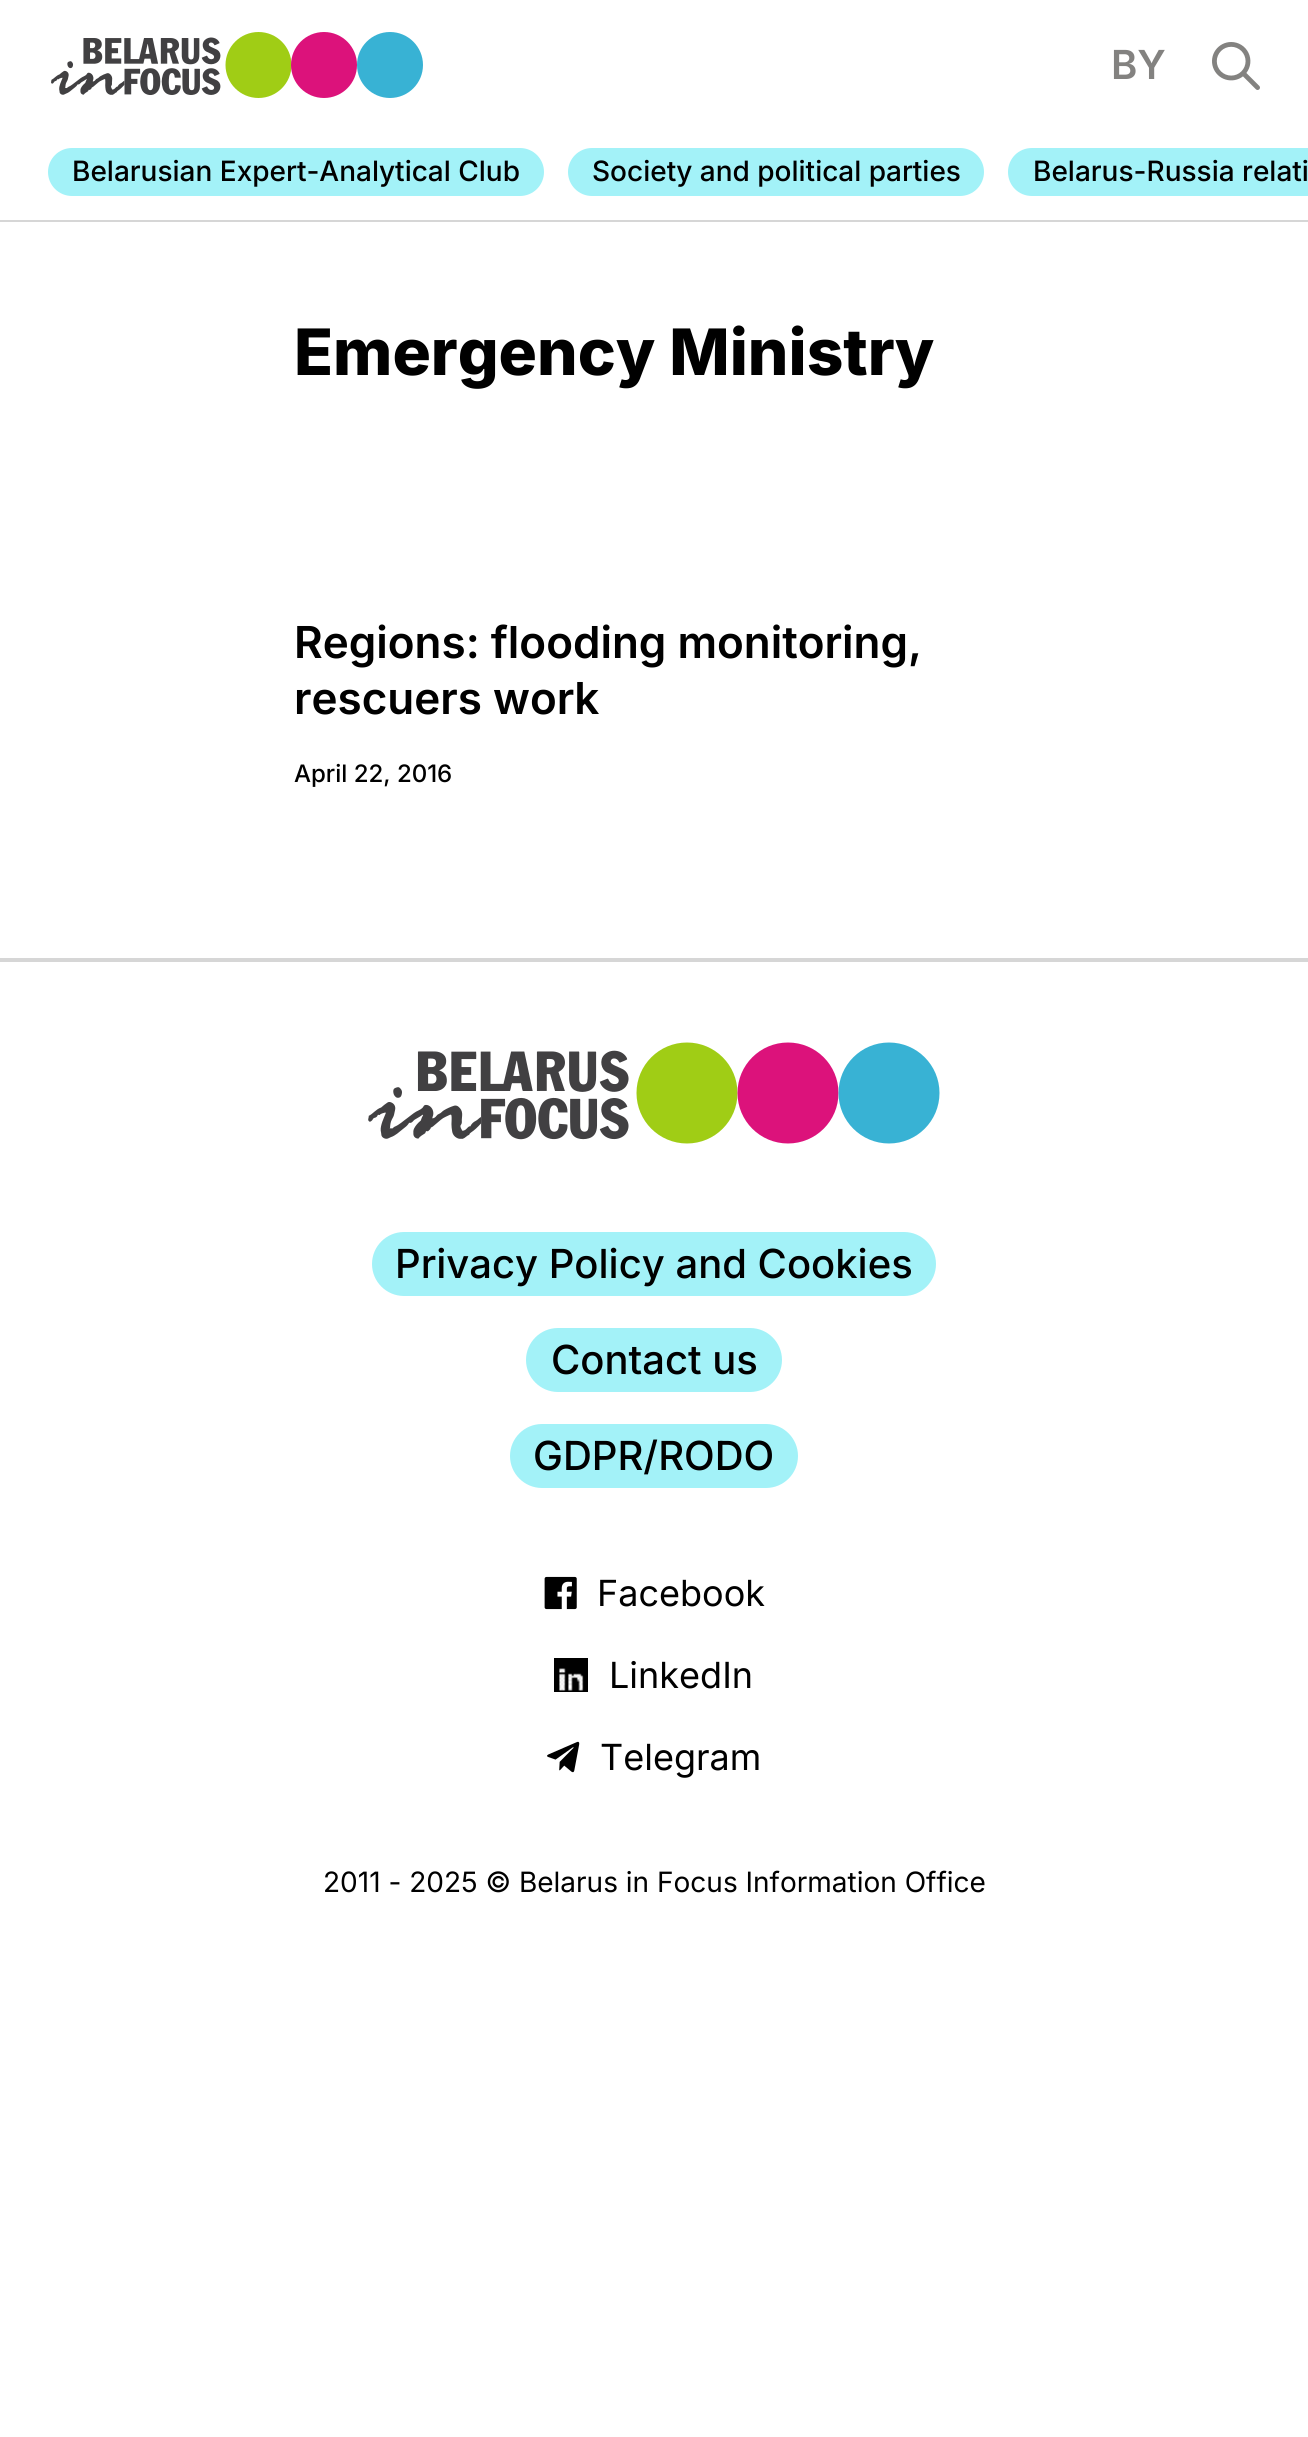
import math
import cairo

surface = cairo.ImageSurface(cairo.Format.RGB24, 1308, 2437)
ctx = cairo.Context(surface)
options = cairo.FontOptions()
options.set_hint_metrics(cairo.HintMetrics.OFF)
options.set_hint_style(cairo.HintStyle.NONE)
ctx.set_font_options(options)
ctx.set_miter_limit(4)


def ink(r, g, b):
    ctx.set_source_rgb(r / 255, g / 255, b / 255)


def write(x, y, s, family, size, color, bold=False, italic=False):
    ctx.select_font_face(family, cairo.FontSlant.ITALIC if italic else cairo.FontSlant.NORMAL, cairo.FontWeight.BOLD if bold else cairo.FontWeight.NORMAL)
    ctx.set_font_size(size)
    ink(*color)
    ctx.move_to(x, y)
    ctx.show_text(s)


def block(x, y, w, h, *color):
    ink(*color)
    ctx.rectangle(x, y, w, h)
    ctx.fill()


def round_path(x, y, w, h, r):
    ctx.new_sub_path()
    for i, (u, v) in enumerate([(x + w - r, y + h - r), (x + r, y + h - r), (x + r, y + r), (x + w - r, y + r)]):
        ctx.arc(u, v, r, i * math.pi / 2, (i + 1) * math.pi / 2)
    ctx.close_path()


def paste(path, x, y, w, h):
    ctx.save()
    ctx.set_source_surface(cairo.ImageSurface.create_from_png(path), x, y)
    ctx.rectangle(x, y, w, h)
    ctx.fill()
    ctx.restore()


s1 = dict(family="Inter SemiBold", size=40, color=(131, 130, 128))
s2 = dict(family="Inter Medium", size=28, color=(0, 0, 0))
s3 = dict(family="Inter ExtraBold", size=64, color=(0, 0, 0))
s4 = dict(family="Inter SemiBold", size=44, color=(0, 0, 0))
s5 = dict(family="Inter Medium", size=24, color=(0, 0, 0))
s6 = dict(family="Inter Medium", size=40, color=(0, 0, 0))
s7 = dict(family="Inter", size=36, color=(0, 0, 0))
s8 = dict(family="Inter", size=28, color=(0, 0, 0))

ink(255, 255, 255)
ctx.paint()
block(0, 220, 1308, 2, 214, 214, 214)
paste("pic1.png", 51, 32, 372, 66)
write(1111, 79, "BY", **s1)
paste("pic2.png", 1212, 42, 48, 48)
ink(163, 242, 248)
round_path(48, 148, 496, 48, 24)
ctx.fill()
write(72, 181, "Belarusian Expert-Analytical Club", **s2)
ink(163, 242, 248)
round_path(568, 148, 416, 48, 24)
ctx.fill()
write(592, 181, "Society and political parties", **s2)
ink(163, 242, 248)
ctx.new_path()
ctx.move_to(1032, 148)
ctx.line_to(1308, 148)
ctx.line_to(1308, 196)
ctx.line_to(1032, 196)
ctx.curve_to(1018.5, 196, 1008, 185.5, 1008, 172)
ctx.curve_to(1008, 158.5, 1018.5, 148, 1032, 148)
ctx.close_path()
ctx.fill()
write(1033, 181, "Belarus-Russia relati", **s2)
write(294, 375, "Emergency Ministry", **s3)
write(294, 658, "Regions: flooding monitoring,", **s4)
write(294, 714, "rescuers work", **s4)
write(294, 782, "April 22, 2016", **s5)
block(0, 958, 1308, 4, 214, 214, 214)
paste("pic3.png", 368, 1042, 572, 102)
ink(163, 242, 248)
round_path(372, 1232, 564, 64, 32)
ctx.fill()
write(395, 1278, "Privacy Policy and Cookies", **s6)
ink(163, 242, 248)
round_path(526, 1328, 256, 64, 32)
ctx.fill()
write(551, 1374, "Contact us", **s6)
ink(163, 242, 248)
round_path(510, 1424, 288, 64, 32)
ctx.fill()
write(533, 1470, "GDPR/RODO", **s6)
paste("pic4.png", 544, 1576, 33, 34)
write(597, 1606, "Facebook", **s7)
paste("pic5.png", 554, 1658, 34, 34)
write(609, 1688, "LinkedIn", **s7)
paste("pic6.png", 547, 1741, 33, 32)
write(600, 1770, "Telegram", **s7)
write(323, 1892, "2011 - 2025 © Belarus in Focus Information Office", **s8)
surface.write_to_png("screenshot.png")
